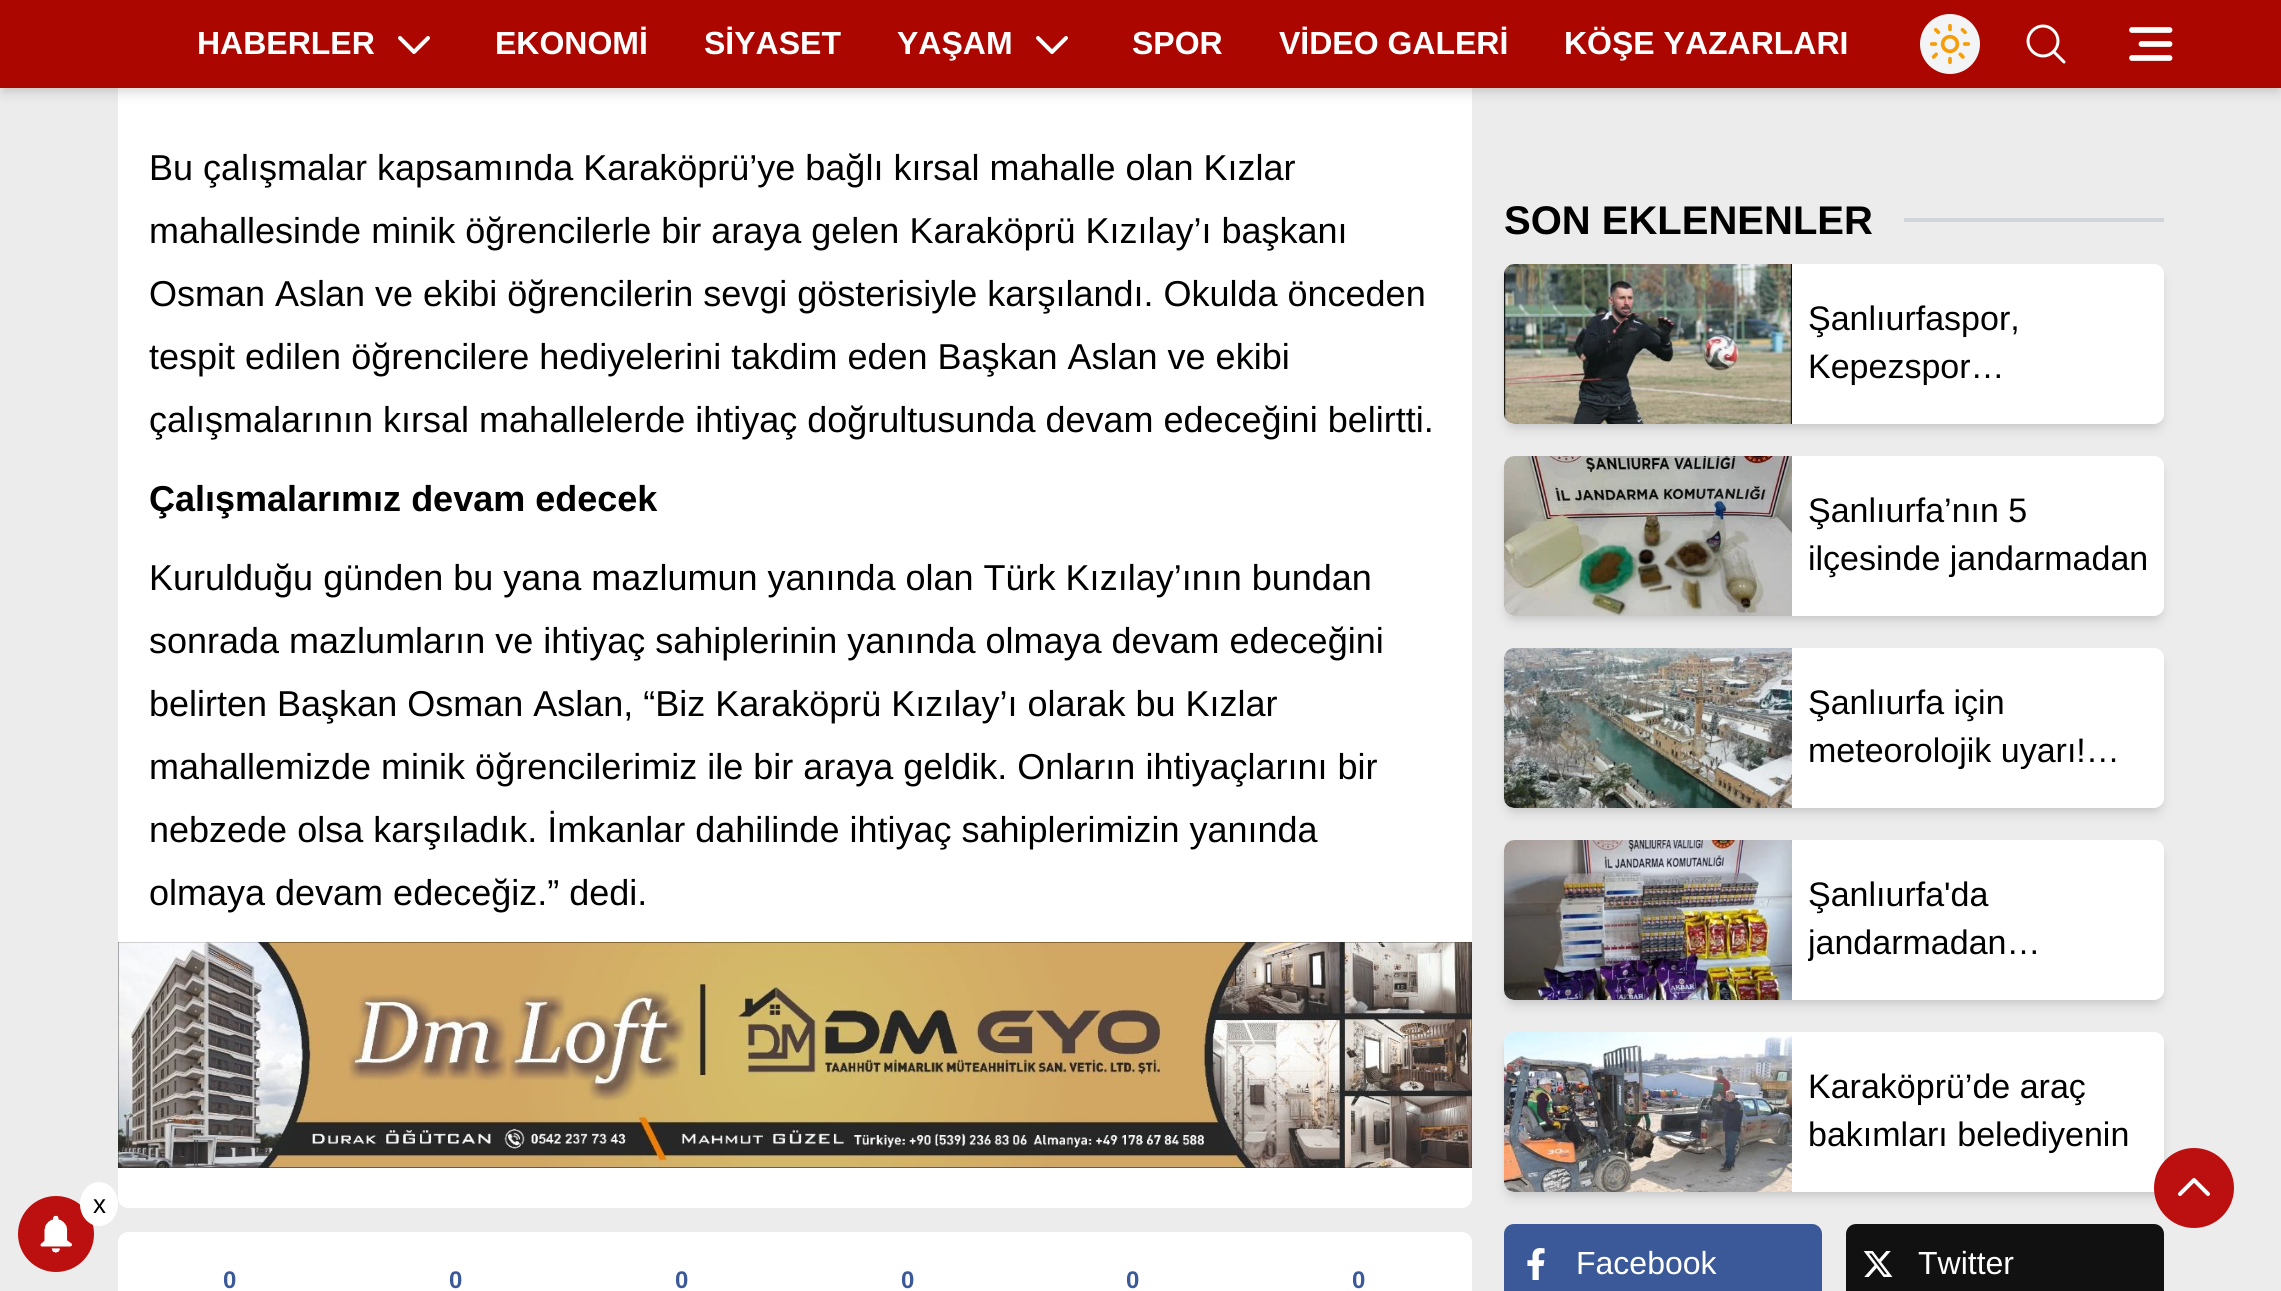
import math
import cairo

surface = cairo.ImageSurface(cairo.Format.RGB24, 2281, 1291)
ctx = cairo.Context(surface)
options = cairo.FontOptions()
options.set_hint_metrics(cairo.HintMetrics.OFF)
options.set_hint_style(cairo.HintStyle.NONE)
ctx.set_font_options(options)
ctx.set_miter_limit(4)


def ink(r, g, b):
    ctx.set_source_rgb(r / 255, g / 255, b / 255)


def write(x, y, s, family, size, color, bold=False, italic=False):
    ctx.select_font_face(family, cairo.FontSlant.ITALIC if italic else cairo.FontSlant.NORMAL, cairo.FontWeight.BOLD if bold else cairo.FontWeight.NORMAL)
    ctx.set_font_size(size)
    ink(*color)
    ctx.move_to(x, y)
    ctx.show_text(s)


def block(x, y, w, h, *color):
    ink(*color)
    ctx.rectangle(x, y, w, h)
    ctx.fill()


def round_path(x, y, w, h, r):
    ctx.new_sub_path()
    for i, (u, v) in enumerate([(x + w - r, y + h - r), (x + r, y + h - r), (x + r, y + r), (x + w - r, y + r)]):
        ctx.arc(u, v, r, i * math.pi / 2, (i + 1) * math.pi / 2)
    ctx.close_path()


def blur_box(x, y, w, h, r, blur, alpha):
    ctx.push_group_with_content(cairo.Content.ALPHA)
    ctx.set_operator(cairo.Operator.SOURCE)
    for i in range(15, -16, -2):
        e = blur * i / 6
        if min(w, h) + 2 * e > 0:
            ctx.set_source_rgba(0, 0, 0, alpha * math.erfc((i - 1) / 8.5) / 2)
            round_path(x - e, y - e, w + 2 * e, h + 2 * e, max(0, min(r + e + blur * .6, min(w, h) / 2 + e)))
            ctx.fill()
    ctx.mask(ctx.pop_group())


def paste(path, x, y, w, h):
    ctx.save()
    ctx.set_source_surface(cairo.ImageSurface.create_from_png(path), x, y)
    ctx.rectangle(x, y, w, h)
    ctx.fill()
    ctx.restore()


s1 = dict(family="Liberation Sans", size=32, color=(255, 255, 255), bold=True)
s2 = dict(family="Liberation Sans", size=26, color=(0, 0, 0))
s3 = dict(family="Liberation Sans", size=36, color=(0, 0, 0))
s4 = dict(family="Liberation Sans", size=36, color=(0, 0, 0), bold=True)
s5 = dict(family="Liberation Sans", size=24, color=(59, 89, 152), bold=True)
s6 = dict(family="Liberation Sans", size=40, color=(0, 0, 0), bold=True)
s7 = dict(family="Liberation Sans", size=34, color=(0, 0, 0))
s8 = dict(family="Liberation Sans", size=32, color=(255, 255, 255))

ink(236, 236, 236)
ctx.paint()
ink(255, 255, 255)
round_path(118, -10, 1354, 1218, 10)
ctx.fill()
ink(0, 0, 0)
blur_box(4, 8, 2274, 80, 0, 4, 0.1)
blur_box(2, 10, 2278, 84, 0, 6, 0.1)
block(0, 0, 2281, 88, 171, 6, 0)
write(197, 54, "HABERLER", **s1)
ctx.new_path()
ctx.move_to(428, 38)
ctx.line_to(414, 52)
ctx.line_to(400, 38)
ctx.set_line_width(4)
ctx.set_line_cap(cairo.LineCap.ROUND)
ctx.set_line_join(cairo.LineJoin.ROUND)
ctx.stroke()
write(495, 54, "EKONOMİ", **s1)
write(704, 54, "SİYASET", **s1)
write(897, 54, "YAŞAM", **s1)
ctx.new_path()
ctx.move_to(1066, 38)
ctx.line_to(1052, 52)
ctx.line_to(1038, 38)
ctx.stroke()
write(1132, 54, "SPOR", **s1)
write(1279, 54, "VİDEO GALERİ", **s1)
write(1564, 54, "KÖŞE YAZARLARI", **s1)
ink(243, 244, 246)
ctx.new_path()
ctx.arc(1950, 44, 30, 0, 2 * math.pi)
ctx.fill()
paste("pic1.png", 1929, 23, 42, 42)
ctx.new_path()
ctx.move_to(2064, 62)
ctx.line_to(2053.5, 51.5)
ctx.move_to(2053.5, 51.5)
ctx.curve_to(2059.5, 45.5, 2059.5, 36.5, 2053.5, 30.5)
ctx.curve_to(2047.5, 24.5, 2038.5, 24.5, 2032.5, 30.5)
ctx.curve_to(2026.5, 36.5, 2026.5, 45.5, 2032.5, 51.5)
ctx.curve_to(2038.5, 57.5, 2047.5, 57.5, 2053.5, 51.5)
ctx.close_path()
ink(255, 255, 255)
ctx.set_line_width(3)
ctx.stroke()
ctx.new_path()
ctx.move_to(2169.5, 30)
ctx.line_to(2132, 30)
ctx.move_to(2169.5, 44)
ctx.line_to(2141.5, 44)
ctx.move_to(2169.5, 58)
ctx.line_to(2132, 58)
ctx.set_line_width(5.8)
ctx.stroke()
ink(188, 15, 15)
ctx.arc(56, 1234, 38, 0, 2 * math.pi)
ctx.fill()
ink(255, 255, 255)
ctx.new_path()
ctx.move_to(99, 1182)
ctx.curve_to(109.5, 1182, 118, 1192, 118, 1204)
ctx.curve_to(118, 1216, 109.5, 1226, 99, 1226)
ctx.curve_to(88.5, 1226, 80, 1216, 80, 1204)
ctx.curve_to(80, 1192, 88.5, 1182, 99, 1182)
ctx.close_path()
ctx.fill()
write(93, 1213, "x", **s2)
paste("pic2.png", 40, 1215, 33, 38)
write(149, 180, "Bu çalışmalar kapsamında Karaköprü’ye bağlı kırsal mahalle olan Kızlar", **s3)
write(149, 243, "mahallesinde minik öğrencilerle bir araya gelen Karaköprü Kızılay’ı başkanı", **s3)
write(149, 306, "Osman Aslan ve ekibi öğrencilerin sevgi gösterisiyle karşılandı. Okulda önceden", **s3)
write(149, 369, "tespit edilen öğrencilere hediyelerini takdim eden Başkan Aslan ve ekibi", **s3)
write(149, 432, "çalışmalarının kırsal mahallelerde ihtiyaç doğrultusunda devam edeceğini belirtti.", **s3)
write(149, 511, "Çalışmalarımız devam edecek", **s4)
write(149, 590, "Kurulduğu günden bu yana mazlumun yanında olan Türk Kızılay’ının bundan", **s3)
write(149, 653, "sonrada mazlumların ve ihtiyaç sahiplerinin yanında olmaya devam edeceğini", **s3)
write(149, 716, "belirten Başkan Osman Aslan, “Biz Karaköprü Kızılay’ı olarak bu Kızlar", **s3)
write(149, 779, "mahallemizde minik öğrencilerimiz ile bir araya geldik. Onların ihtiyaçlarını bir", **s3)
write(149, 842, "nebzede olsa karşıladık. İmkanlar dahilinde ihtiyaç sahiplerimizin yanında", **s3)
write(149, 905, "olmaya devam edeceğiz.” dedi.", **s3)
paste("pic3.png", 118, 942, 1354, 226)
ink(255, 255, 255)
round_path(118, 1232, 1354, 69, 10)
ctx.fill()
write(223, 1288, "0", **s5)
write(449, 1288, "0", **s5)
write(675, 1288, "0", **s5)
write(901, 1288, "0", **s5)
write(1126, 1288, "0", **s5)
write(1352, 1288, "0", **s5)
write(1504, 234, "SON EKLENENLER", **s6)
block(1904, 218, 260, 4, 209, 213, 219)
ink(0, 0, 0)
blur_box(1508, 272, 652, 152, 6, 4, 0.1)
blur_box(1506, 274, 656, 156, 8, 6, 0.1)
ink(255, 255, 255)
round_path(1504, 264, 660, 160, 10)
ctx.fill()
paste("pic4.png", 1504, 264, 288, 160)
write(1808, 330, "Şanlıurfaspor,", **s7)
write(1808, 378, "Kepezspor…", **s7)
ink(0, 0, 0)
blur_box(1508, 464, 652, 152, 6, 4, 0.1)
blur_box(1506, 466, 656, 156, 8, 6, 0.1)
ink(255, 255, 255)
round_path(1504, 456, 660, 160, 10)
ctx.fill()
paste("pic5.png", 1504, 456, 288, 160)
write(1808, 522, "Şanlıurfa’nın 5", **s7)
write(1808, 570, "ilçesinde jandarmadan", **s7)
ink(0, 0, 0)
blur_box(1508, 656, 652, 152, 6, 4, 0.1)
blur_box(1506, 658, 656, 156, 8, 6, 0.1)
ink(255, 255, 255)
round_path(1504, 648, 660, 160, 10)
ctx.fill()
paste("pic6.png", 1504, 648, 288, 160)
write(1808, 714, "Şanlıurfa için", **s7)
write(1808, 762, "meteorolojik uyarı!…", **s7)
ink(0, 0, 0)
blur_box(1508, 848, 652, 152, 6, 4, 0.1)
blur_box(1506, 850, 656, 156, 8, 6, 0.1)
ink(255, 255, 255)
round_path(1504, 840, 660, 160, 10)
ctx.fill()
paste("pic7.png", 1504, 840, 288, 160)
write(1808, 906, "Şanlıurfa'da", **s7)
ctx.save()
ctx.rectangle(1808, 872, 340, 96)
ctx.clip()
write(1808, 954, "jandarmadan…", **s7)
ctx.restore()
ink(0, 0, 0)
blur_box(1508, 1040, 652, 152, 6, 4, 0.1)
blur_box(1506, 1042, 656, 156, 8, 6, 0.1)
ink(255, 255, 255)
round_path(1504, 1032, 660, 160, 10)
ctx.fill()
paste("pic8.png", 1504, 1032, 288, 160)
write(1808, 1098, "Karaköprü’de araç", **s7)
write(1808, 1146, "bakımları belediyenin", **s7)
ink(59, 89, 152)
round_path(1504, 1224, 318, 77, 10)
ctx.fill()
paste("pic9.png", 1527, 1248, 18, 32)
write(1576, 1274, "Facebook", **s8)
ink(17, 17, 17)
round_path(1846, 1224, 318, 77, 10)
ctx.fill()
paste("pic10.png", 1863, 1251, 30, 26)
write(1918, 1274, "Twitter", **s8)
ink(188, 15, 15)
ctx.new_path()
ctx.arc(2194, 1188, 40, 0, 2 * math.pi)
ctx.fill()
ctx.new_path()
ctx.move_to(2180, 1194)
ctx.line_to(2194, 1180)
ctx.line_to(2208, 1194)
ink(255, 255, 255)
ctx.set_line_width(4)
ctx.stroke()
surface.write_to_png("screenshot.png")
